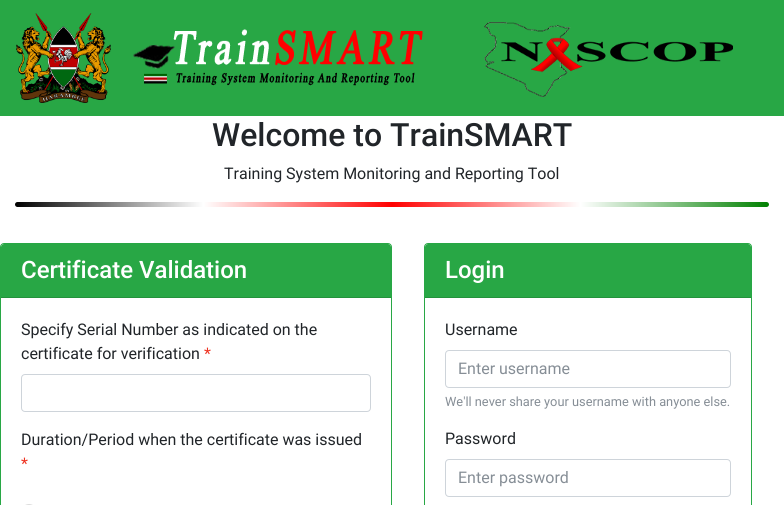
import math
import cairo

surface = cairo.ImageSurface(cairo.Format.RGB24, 784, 505)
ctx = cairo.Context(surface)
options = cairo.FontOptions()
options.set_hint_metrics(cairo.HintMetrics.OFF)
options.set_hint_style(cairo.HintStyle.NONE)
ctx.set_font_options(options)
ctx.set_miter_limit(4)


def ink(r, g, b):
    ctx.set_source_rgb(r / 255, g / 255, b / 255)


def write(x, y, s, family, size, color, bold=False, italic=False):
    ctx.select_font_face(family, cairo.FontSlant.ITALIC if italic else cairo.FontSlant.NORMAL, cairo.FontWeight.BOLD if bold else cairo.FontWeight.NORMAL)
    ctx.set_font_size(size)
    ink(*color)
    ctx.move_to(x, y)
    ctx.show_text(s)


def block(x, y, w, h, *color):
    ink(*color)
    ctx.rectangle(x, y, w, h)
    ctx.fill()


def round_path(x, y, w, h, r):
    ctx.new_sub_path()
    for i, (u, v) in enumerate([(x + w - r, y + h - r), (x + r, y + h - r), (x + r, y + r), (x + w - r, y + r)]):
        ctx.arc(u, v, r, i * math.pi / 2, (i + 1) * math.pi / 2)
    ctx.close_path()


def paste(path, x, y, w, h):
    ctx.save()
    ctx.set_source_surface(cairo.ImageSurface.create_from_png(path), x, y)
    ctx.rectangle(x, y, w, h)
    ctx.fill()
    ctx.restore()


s1 = dict(family="Roboto Medium", size=32, color=(33, 37, 41))
s2 = dict(family="Roboto", size=16, color=(33, 37, 41))
s3 = dict(family="Roboto Medium", size=24, color=(255, 255, 255))
s4 = dict(family="Roboto", size=16, color=(238, 51, 34))
s5 = dict(family="Roboto", size=16, color=(134, 142, 150))
s6 = dict(family="Roboto", size=12.8, color=(134, 142, 150))

ink(255, 255, 255)
ctx.paint()
block(0, 0, 784, 116, 40, 167, 69)
paste("pic1.png", 16, 13, 95, 90)
paste("pic2.png", 133, 29, 290, 57)
paste("pic3.png", 484, 22, 249, 75)
write(212, 146, "Welcome to TrainSMART", **s1)
write(224, 179, "Training System Monitoring and Reporting Tool", **s2)
gradient = cairo.LinearGradient(15, 205, 769, 204)
gradient.add_color_stop_rgba(0, 0, 0, 0, 1)
gradient.add_color_stop_rgba(0.25, 1, 1, 1, 1)
gradient.add_color_stop_rgba(0.5, 1, 0, 0, 1)
gradient.add_color_stop_rgba(0.75, 1, 1, 1, 1)
gradient.add_color_stop_rgba(1, 0, 0.502, 0, 1)
ctx.set_source(gradient)
round_path(15, 202, 754, 5, 2.5)
ctx.fill()
round_path(0.5, 243.5, 391, 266, 3.5)
ink(40, 167, 69)
ctx.set_line_width(1)
ctx.stroke()
ctx.new_path()
ctx.move_to(4, 244)
ctx.line_to(388, 244)
ctx.curve_to(389.5, 244, 391, 245.5, 391, 247)
ctx.line_to(391, 298)
ctx.line_to(1, 298)
ctx.line_to(1, 247)
ctx.curve_to(1, 245.5, 2.5, 244, 4, 244)
ctx.close_path()
ctx.fill()
block(1, 297, 390, 1, 35, 146, 60)
write(21, 278, "Certificate Validation", **s3)
write(21, 335, "Specify Serial Number as indicated on the", **s2)
write(21, 359, "certificate for verification", **s2)
write(204, 359, "*", **s4)
round_path(21.5, 374.5, 349, 37, 3.5)
ink(206, 212, 218)
ctx.stroke()
write(21, 445, "Duration/Period when the certificate was issued", **s2)
write(21, 469, "*", **s4)
ink(221, 221, 221)
round_path(21, 504, 16, 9, 8)
ctx.fill()
round_path(424.5, 243.5, 327, 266, 3.5)
ink(40, 167, 69)
ctx.stroke()
ctx.new_path()
ctx.move_to(428, 244)
ctx.line_to(748, 244)
ctx.curve_to(749.5, 244, 751, 245.5, 751, 247)
ctx.line_to(751, 298)
ctx.line_to(425, 298)
ctx.line_to(425, 247)
ctx.curve_to(425, 245.5, 426.5, 244, 428, 244)
ctx.close_path()
ctx.fill()
block(425, 297, 326, 1, 35, 146, 60)
write(445, 278, "Login", **s3)
write(445, 335, "Username", **s2)
round_path(445.5, 350.5, 285, 37, 3.5)
ink(206, 212, 218)
ctx.stroke()
write(458, 374, "Enter username", **s5)
write(445, 406, "We'll never share your username with anyone else.", **s6)
write(445, 444, "Password", **s2)
round_path(445.5, 459.5, 285, 37, 3.5)
ink(206, 212, 218)
ctx.stroke()
write(458, 483, "Enter password", **s5)
surface.write_to_png("screenshot.png")
